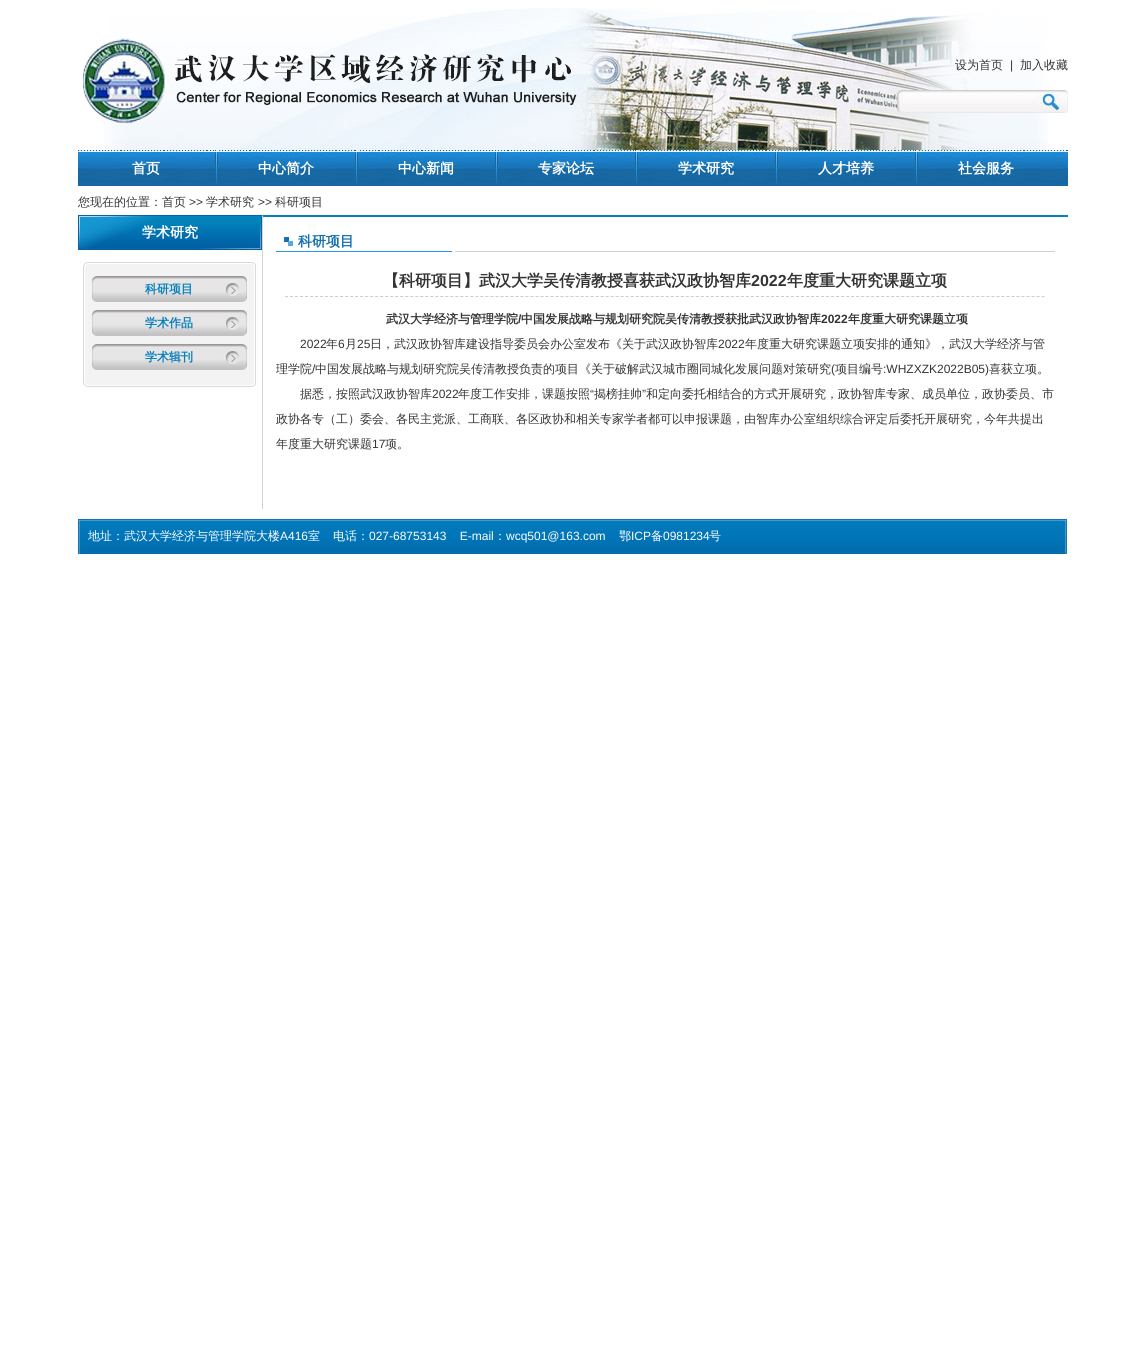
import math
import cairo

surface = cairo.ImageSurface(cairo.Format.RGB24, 1145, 1349)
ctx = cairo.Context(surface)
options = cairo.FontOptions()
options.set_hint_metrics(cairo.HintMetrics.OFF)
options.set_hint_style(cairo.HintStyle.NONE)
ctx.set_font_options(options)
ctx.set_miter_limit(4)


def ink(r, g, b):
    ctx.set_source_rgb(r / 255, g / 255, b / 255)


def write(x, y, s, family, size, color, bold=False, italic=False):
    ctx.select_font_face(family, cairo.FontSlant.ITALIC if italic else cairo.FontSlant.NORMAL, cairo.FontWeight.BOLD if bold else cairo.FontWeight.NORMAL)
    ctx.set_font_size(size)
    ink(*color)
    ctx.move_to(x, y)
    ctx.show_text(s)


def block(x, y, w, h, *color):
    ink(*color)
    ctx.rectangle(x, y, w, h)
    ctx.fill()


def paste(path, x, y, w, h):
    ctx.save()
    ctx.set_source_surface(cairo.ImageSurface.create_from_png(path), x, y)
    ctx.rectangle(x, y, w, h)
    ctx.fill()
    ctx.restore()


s1 = dict(family="WenQuanYi Zen Hei Medium", size=12, color=(52, 52, 52))
s2 = dict(family="Liberation Sans", size=12, color=(52, 52, 52))
s3 = dict(family="WenQuanYi Zen Hei", size=14, color=(255, 255, 255), bold=True)
s4 = dict(family="WenQuanYi Zen Hei", size=12, color=(5, 127, 188), bold=True)
s5 = dict(family="WenQuanYi Zen Hei", size=14, color=(20, 111, 175), bold=True)
s6 = dict(family="WenQuanYi Zen Hei", size=16, color=(52, 52, 52), bold=True)
s7 = dict(family="Liberation Sans", size=16, color=(52, 52, 52), bold=True)
s8 = dict(family="WenQuanYi Zen Hei", size=12, color=(52, 52, 52), bold=True)
s9 = dict(family="Liberation Sans", size=12, color=(52, 52, 52), bold=True)
s10 = dict(family="WenQuanYi Zen Hei Medium", size=12, color=(255, 255, 255))
s11 = dict(family="Liberation Sans", size=12, color=(255, 255, 255))

ink(255, 255, 255)
ctx.paint()
paste("pic1.png", 104, 8, 944, 142)
paste("pic2.png", 82, 38, 495, 85)
write(955, 69, "设为首页", **s1)
write(1010, 69, "|", **s2)
write(1020, 69, "加入收藏", **s1)
paste("pic3.png", 897, 90, 144, 23)
paste("pic4.png", 1041, 90, 27, 23)
paste("pic5.png", 78, 150, 990, 36)
paste("pic6.png", 215, 150, 3, 36)
write(132, 173, "首页", **s3)
paste("pic7.png", 355, 150, 3, 34)
write(258, 173, "中心简介", **s3)
paste("pic6.png", 495, 150, 3, 36)
write(398, 173, "中心新闻", **s3)
paste("pic6.png", 635, 150, 3, 36)
write(538, 173, "专家论坛", **s3)
paste("pic6.png", 775, 150, 3, 36)
write(678, 173, "学术研究", **s3)
paste("pic7.png", 915, 150, 3, 34)
write(818, 173, "人才培养", **s3)
write(958, 173, "社会服务", **s3)
write(78, 206, "您现在的位置：首页", **s1)
write(189, 206, ">>", **s2)
write(206, 206, "学术研究", **s1)
write(258, 206, ">>", **s2)
write(275, 206, "科研项目", **s1)
paste("pic8.png", 78, 215, 184, 35)
write(142, 237, "学术研究", **s3)
paste("pic9.png", 83, 262, 173, 11)
paste("pic10.png", 83, 273, 173, 102)
paste("pic11.png", 92, 276, 155, 26)
write(145, 293, "科研项目", **s4)
paste("pic11.png", 92, 310, 155, 26)
write(145, 327, "学术作品", **s4)
paste("pic11.png", 92, 344, 155, 26)
write(145, 361, "学术辑刊", **s4)
paste("pic12.png", 83, 375, 173, 12)
ink(1, 132, 189)
ctx.new_path()
ctx.move_to(262, 215)
ctx.line_to(1068, 215)
ctx.line_to(1068, 217)
ctx.line_to(263, 217)
ctx.close_path()
ctx.fill()
ink(211, 211, 211)
ctx.new_path()
ctx.move_to(262, 509)
ctx.line_to(262, 215)
ctx.line_to(263, 217)
ctx.line_to(263, 509)
ctx.close_path()
ctx.fill()
block(276, 251, 176, 1, 43, 150, 227)
paste("pic13.png", 284, 237, 9, 9)
write(298, 246, "科研项目", **s5)
block(455, 251, 600, 1, 209, 209, 209)
ctx.new_path()
ctx.move_to(285, 296.5)
ctx.line_to(1045, 296.5)
ink(204, 204, 204)
ctx.set_line_width(1)
ctx.set_dash([3, 2.01])
ctx.stroke()
write(383, 286, "【科研项目】武汉大学吴传清教授喜获武汉政协智库", **s6)
write(751, 286, "2022", **s7)
write(787, 286, "年度重大研究课题立项", **s6)
write(386, 323, "武汉大学经济与管理学院", **s8)
write(518, 323, "/", **s9)
write(521, 323, "中国发展战略与规划研究院吴传清教授获批武汉政协智库", **s8)
write(821, 323, "2022", **s9)
write(848, 323, "年度重大研究课题立项", **s8)
write(300, 348, "2022", **s2)
write(326, 348, "年", **s1)
write(338, 348, "6", **s2)
write(345, 348, "月", **s1)
write(357, 348, "25", **s2)
write(370, 348, "日，武汉政协智库建设指导委员会办公室发布《关于武汉政协智库", **s1)
write(718, 348, "2022", **s2)
write(745, 348, "年度重大研究课题立项安排的通知》，武汉大学经济与管", **s1)
ctx.save()
ctx.rectangle(276, 256, 779, 236)
ctx.clip()
write(276, 373, "理学院", **s1)
ctx.restore()
write(312, 373, "/", **s2)
write(315, 373, "中国发展战略与规划研究院吴传清教授负责的项目《关于破解武汉城市圈同城化发展问题对策研究", **s1)
write(831, 373, "(", **s2)
write(835, 373, "项目编号", **s1)
write(883, 373, ":WHZXZK2022B05)", **s2)
write(989, 373, "喜获立项。", **s1)
write(300, 398, "据悉，按照武汉政协智库", **s1)
write(432, 398, "2022", **s2)
write(458, 398, "年度工作安排，课题按照", **s1)
write(590, 398, "“", **s2)
write(594, 398, "揭榜挂帅", **s1)
write(642, 398, "”", **s2)
write(646, 398, "和定向委托相结合的方式开展研究，政协智库专家、成员单位，政协委员、市", **s1)
write(276, 423, "政协各专（工）委会、各民主党派、工商联、各区政协和相关专家学者都可以申报课题，由智库办公室组织综合评定后委托开展研究，今年共提出", **s1)
write(276, 448, "年度重大研究课题", **s1)
write(372, 448, "17", **s2)
write(385, 448, "项。", **s1)
paste("pic14.png", 78, 519, 990, 35)
write(88, 540, "地址：武汉大学经济与管理学院大楼", **s10)
write(280, 540, "A416", **s11)
write(308, 540, "室", **s10)
write(333, 540, "电话：", **s10)
write(369, 540, "027-68753143    E-mail", **s11)
write(494, 540, "：", **s10)
write(506, 540, "wcq501@163.com", **s11)
write(619, 540, "鄂", **s10)
write(631, 540, "ICP", **s11)
write(651, 540, "备", **s10)
write(663, 540, "0981234", **s11)
write(709, 540, "号", **s10)
surface.write_to_png("screenshot.png")
